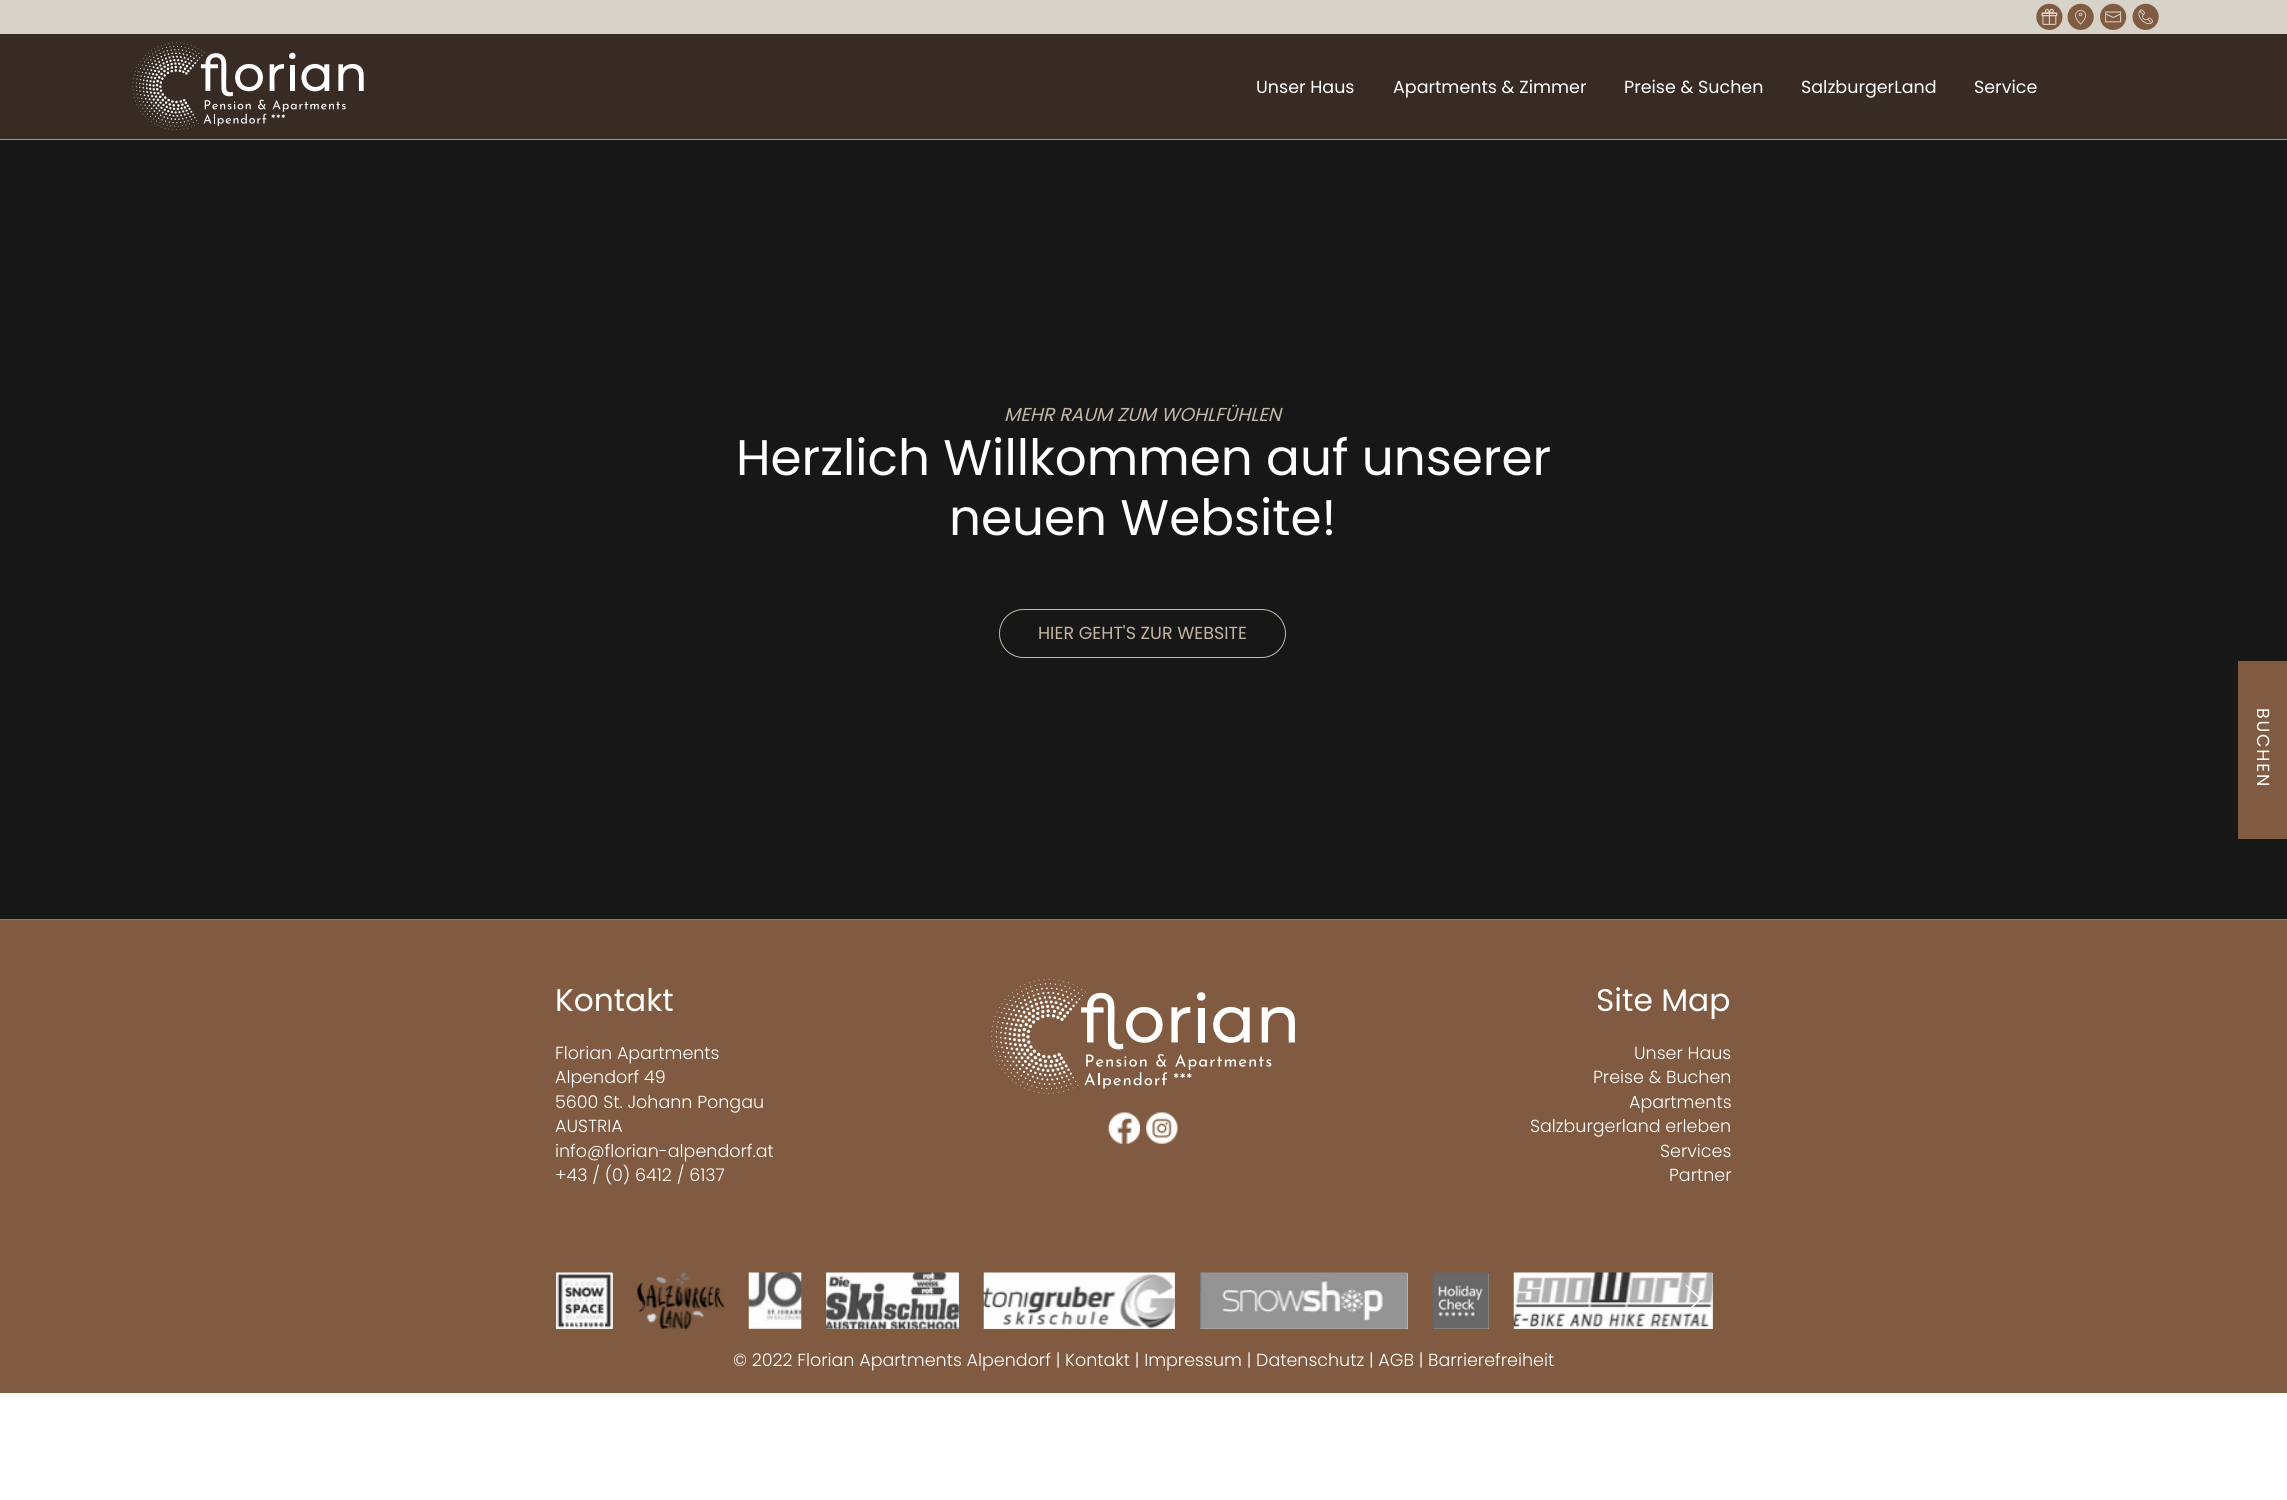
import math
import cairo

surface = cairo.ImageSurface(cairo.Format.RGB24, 2287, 1500)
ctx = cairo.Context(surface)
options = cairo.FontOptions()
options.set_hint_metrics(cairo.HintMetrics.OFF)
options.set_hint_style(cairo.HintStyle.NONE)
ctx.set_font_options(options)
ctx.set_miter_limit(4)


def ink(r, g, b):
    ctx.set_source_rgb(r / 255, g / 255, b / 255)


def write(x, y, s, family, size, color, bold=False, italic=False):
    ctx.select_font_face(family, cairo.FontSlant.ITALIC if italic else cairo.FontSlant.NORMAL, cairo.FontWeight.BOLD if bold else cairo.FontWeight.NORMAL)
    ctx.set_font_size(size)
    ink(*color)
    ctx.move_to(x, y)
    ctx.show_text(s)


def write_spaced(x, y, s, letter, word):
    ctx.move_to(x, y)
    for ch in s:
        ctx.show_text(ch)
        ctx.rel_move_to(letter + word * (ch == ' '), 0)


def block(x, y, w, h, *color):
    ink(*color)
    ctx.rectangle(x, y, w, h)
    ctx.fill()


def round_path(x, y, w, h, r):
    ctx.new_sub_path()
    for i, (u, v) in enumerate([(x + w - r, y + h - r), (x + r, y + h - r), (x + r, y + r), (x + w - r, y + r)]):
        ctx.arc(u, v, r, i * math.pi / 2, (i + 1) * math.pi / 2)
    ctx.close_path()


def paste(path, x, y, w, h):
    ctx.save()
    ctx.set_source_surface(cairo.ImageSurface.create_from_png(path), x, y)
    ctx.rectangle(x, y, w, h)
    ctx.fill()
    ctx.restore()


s1 = dict(family="Poppins", size=17.5, color=(255, 255, 255))
s2 = dict(family="Poppins", size=18.75, color=(194, 182, 165), italic=True)
s3 = dict(family="Poppins", size=50, color=(255, 255, 255))
s4 = dict(family="Poppins", size=17.5, color=(194, 182, 165))
s5 = dict(family="Poppins", size=31.25, color=(255, 255, 255))
s6 = dict(family="Poppins Light", size=17.5, color=(255, 255, 255))

ink(255, 255, 255)
ctx.paint()
block(0, 919, 2287, 1, 128, 128, 128)
block(0, 34, 2287, 105, 55, 43, 36)
block(0, 0, 2287, 34, 216, 211, 200)
paste("pic1.png", 2036, 3, 27, 27)
paste("pic2.png", 2067, 3, 27, 27)
paste("pic3.png", 2100, 3, 27, 27)
paste("pic4.png", 2132, 3, 27, 27)
paste("pic5.png", 132, 42, 232, 88)
write(1256, 93, "Unser Haus", **s1)
write(1393, 93, "Apartments & Zimmer", **s1)
write(1624, 93, "Preise & Suchen", **s1)
write(1801, 93, "SalzburgerLand", **s1)
write(1974, 93, "Service", **s1)
block(0, 139, 2287, 1, 155, 149, 146)
block(0, 140, 2287, 779, 24, 23, 23)
write(1004, 421, "MEHR RAUM ZUM WOHLFÜHLEN", **s2)
write(736, 475, "Herzlich Willkommen auf unserer", **s3)
write(949, 535, "neuen Website!", **s3)
round_path(999.5, 609.5, 286, 48, 24)
ink(194, 182, 165)
ctx.set_line_width(1)
ctx.stroke()
write(1038, 639, "HIER GEHT'S ZUR WEBSITE", **s4)
block(2238, 661, 49, 178, 128, 91, 65)
ink(255, 255, 255)
ctx.save()
ctx.translate(2257, 708)
ctx.rotate(90 * math.pi / 180)
write_spaced(0, 0, "BUCHEN", 1.75, 0)
ctx.restore()
block(0, 920, 2287, 473, 128, 91, 65)
write(555, 1011, "Kontakt", **s5)
paste("pic6.png", 991, 978, 304, 116)
write(1596, 1011, "Site Map", **s5)
write(555, 1059, "Florian Apartments", **s6)
write(555, 1083, "Alpendorf 49", **s6)
write(555, 1108, "5600 St. Johann Pongau", **s6)
write(555, 1132, "AUSTRIA", **s6)
write(555, 1157, "info@florian-alpendorf.at", **s6)
write(555, 1181, "+43 / (0) 6412 / 6137", **s6)
paste("pic7.png", 1108, 1112, 32, 32)
paste("pic8.png", 1146, 1112, 32, 32)
write(1634, 1059, "Unser Haus", **s6)
write(1593, 1083, "Preise & Buchen", **s6)
write(1629, 1108, "Apartments", **s6)
write(1530, 1132, "Salzburgerland erleben", **s6)
write(1660, 1157, "Services", **s6)
write(1669, 1181, "Partner", **s6)
block(556, 1273, 57, 56, 216, 211, 200)
paste("pic9.png", 556, 1272, 57, 57)
paste("pic10.png", 637, 1272, 87, 57)
paste("pic11.png", 748, 1272, 54, 57)
block(826, 1273, 133, 56, 216, 211, 200)
paste("pic12.png", 826, 1272, 133, 57)
block(984, 1273, 191, 56, 216, 211, 200)
paste("pic13.png", 983, 1272, 192, 57)
block(1200, 1273, 208, 56, 216, 211, 200)
paste("pic14.png", 1200, 1272, 208, 57)
block(1433, 1273, 56, 56, 216, 211, 200)
paste("pic15.png", 1432, 1272, 57, 57)
block(1514, 1273, 199, 56, 216, 211, 200)
paste("pic16.png", 1513, 1272, 200, 57)
ctx.set_source_rgba(1, 1, 1, 0.9)
ctx.new_path()
ctx.move_to(1685.5, 1285.5)
ctx.line_to(1686.5, 1284.5)
ctx.line_to(1701.5, 1299)
ctx.line_to(1686.5, 1314)
ctx.line_to(1685.5, 1312.5)
ctx.line_to(1699, 1299)
ctx.close_path()
ctx.fill()
write(733, 1366, "© 2022 Florian Apartments Alpendorf | Kontakt | Impressum | Datenschutz | AGB | Barrierefreiheit", **s6)
surface.write_to_png("screenshot.png")
